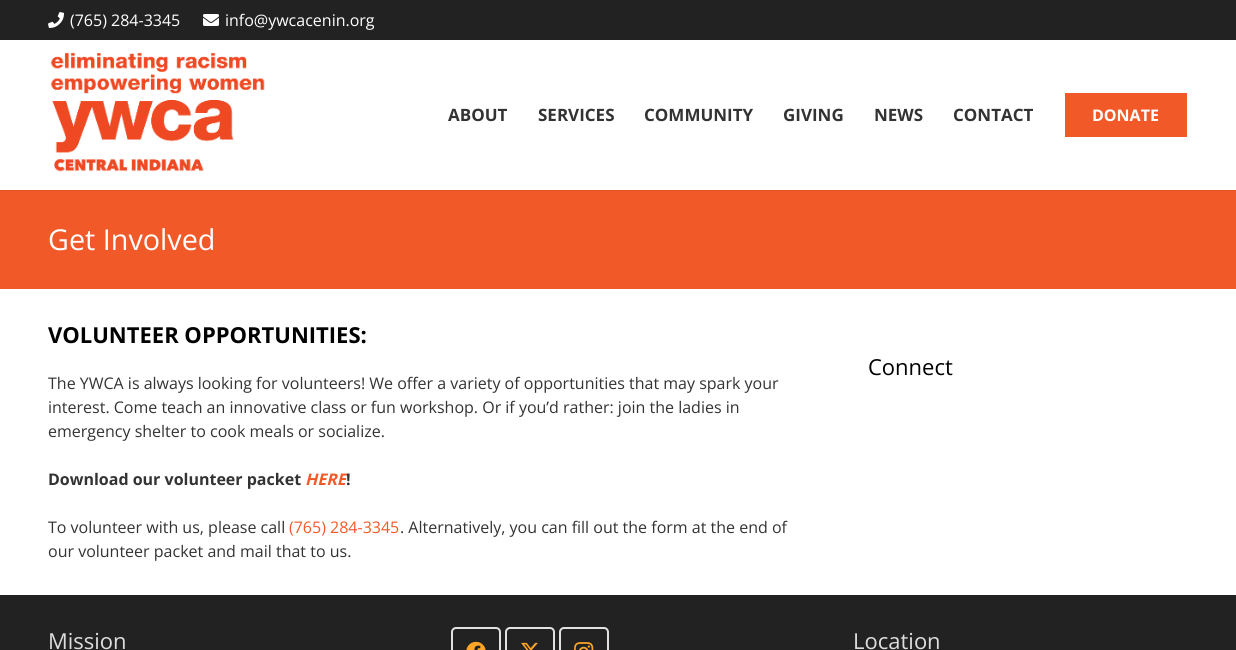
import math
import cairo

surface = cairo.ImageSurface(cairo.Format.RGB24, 1236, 650)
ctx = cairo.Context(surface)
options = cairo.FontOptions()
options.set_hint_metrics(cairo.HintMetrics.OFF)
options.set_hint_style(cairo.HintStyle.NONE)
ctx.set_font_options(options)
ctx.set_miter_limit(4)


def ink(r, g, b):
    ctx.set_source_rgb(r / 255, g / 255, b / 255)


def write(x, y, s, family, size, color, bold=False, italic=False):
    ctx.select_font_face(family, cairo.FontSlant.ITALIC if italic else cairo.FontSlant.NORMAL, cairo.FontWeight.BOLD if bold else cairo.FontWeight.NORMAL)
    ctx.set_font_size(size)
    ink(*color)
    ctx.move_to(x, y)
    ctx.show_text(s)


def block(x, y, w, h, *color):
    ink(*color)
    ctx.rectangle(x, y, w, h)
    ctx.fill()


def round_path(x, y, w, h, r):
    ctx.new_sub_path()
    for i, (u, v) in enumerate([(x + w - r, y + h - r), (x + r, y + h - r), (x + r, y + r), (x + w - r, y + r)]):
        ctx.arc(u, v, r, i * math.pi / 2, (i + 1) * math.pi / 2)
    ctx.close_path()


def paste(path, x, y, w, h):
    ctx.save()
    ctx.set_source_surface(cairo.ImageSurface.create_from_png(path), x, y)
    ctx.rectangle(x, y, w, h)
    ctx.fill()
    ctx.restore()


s1 = dict(family="Open Sans", size=16, color=(255, 255, 255))
s2 = dict(family="Open Sans", size=17, color=(51, 51, 51), bold=True)
s3 = dict(family="Open Sans", size=16, color=(255, 255, 255), bold=True)
s4 = dict(family="Open Sans", size=28.75, color=(255, 255, 255))
s5 = dict(family="Open Sans", size=22, color=(0, 0, 0), bold=True)
s6 = dict(family="Open Sans", size=16, color=(51, 51, 51))
s7 = dict(family="Open Sans", size=16, color=(51, 51, 51), bold=True)
s8 = dict(family="Open Sans", size=16, color=(241, 90, 40), bold=True, italic=True)
s9 = dict(family="Open Sans", size=16, color=(241, 90, 40))
s10 = dict(family="Open Sans", size=22, color=(0, 0, 0))
s11 = dict(family="Open Sans", size=22, color=(221, 221, 221))

ink(255, 255, 255)
ctx.paint()
block(0, 0, 1236, 40, 34, 34, 34)
paste("pic1.png", 48, 12, 16, 16)
write(70, 26, "(765) 284-3345", **s1)
paste("pic2.png", 203, 14, 16, 12)
write(225, 26, "info@ywcacenin.org", **s1)
block(0, 190, 1236, 1, 222, 83, 37)
paste("pic3.png", 50, 52, 215, 120)
write(448, 121, "ABOUT", **s2)
write(538, 121, "SERVICES", **s2)
write(644, 121, "COMMUNITY", **s2)
write(783, 121, "GIVING", **s2)
write(874, 121, "NEWS", **s2)
write(953, 121, "CONTACT", **s2)
ink(241, 90, 40)
round_path(1064, 92, 124, 46, 0.5)
ctx.fill()
ctx.rectangle(1064.5, 92.5, 123, 45)
ink(255, 255, 255)
ctx.set_line_width(1)
ctx.stroke()
write(1092, 121, "DONATE", **s3)
block(0, 191, 1236, 98, 241, 90, 40)
write(48, 250, "Get Involved", **s4)
write(48, 343, "VOLUNTEER OPPORTUNITIES:", **s5)
write(48, 389, "The YWCA is always looking for volunteers! We offer a variety of opportunities that may spark your", **s6)
write(48, 413, "interest. Come teach an innovative class or fun workshop. Or if you’d rather: join the ladies in", **s6)
write(48, 437, "emergency shelter to cook meals or socialize.", **s6)
write(48, 485, "Download our volunteer packet", **s7)
write(305, 485, "HERE", **s8)
write(346, 485, "!", **s7)
write(48, 533, "To volunteer with us, please call", **s6)
write(289, 533, "(765) 284-3345", **s9)
write(400, 533, ". Alternatively, you can fill out the form at the end of", **s6)
write(48, 557, "our volunteer packet and mail that to us.", **s6)
write(868, 375, "Connect", **s10)
block(0, 595, 1236, 55, 34, 34, 34)
write(48, 649, "Mission", **s11)
round_path(452, 628, 48, 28, 4)
ink(226, 226, 226)
ctx.set_line_width(2)
ctx.stroke()
paste("pic4.png", 466, 641, 20, 9)
round_path(506, 628, 48, 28, 4)
ctx.stroke()
paste("pic5.png", 521, 642, 17, 8)
round_path(560, 628, 48, 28, 4)
ctx.stroke()
paste("pic6.png", 574, 642, 20, 8)
write(853, 649, "Location", **s11)
surface.write_to_png("screenshot.png")
